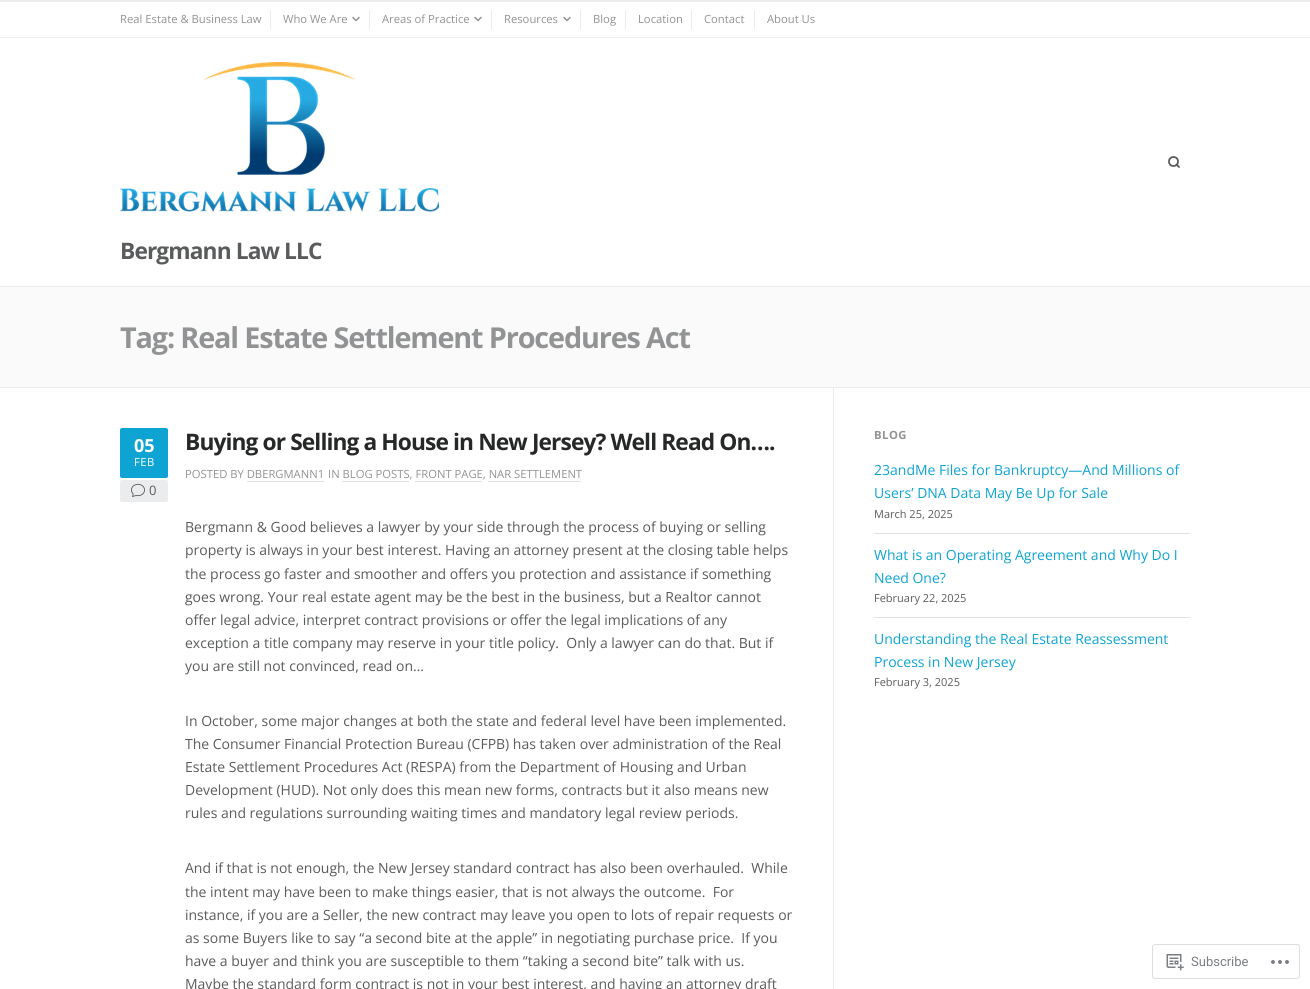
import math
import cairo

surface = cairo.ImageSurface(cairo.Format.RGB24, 1310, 989)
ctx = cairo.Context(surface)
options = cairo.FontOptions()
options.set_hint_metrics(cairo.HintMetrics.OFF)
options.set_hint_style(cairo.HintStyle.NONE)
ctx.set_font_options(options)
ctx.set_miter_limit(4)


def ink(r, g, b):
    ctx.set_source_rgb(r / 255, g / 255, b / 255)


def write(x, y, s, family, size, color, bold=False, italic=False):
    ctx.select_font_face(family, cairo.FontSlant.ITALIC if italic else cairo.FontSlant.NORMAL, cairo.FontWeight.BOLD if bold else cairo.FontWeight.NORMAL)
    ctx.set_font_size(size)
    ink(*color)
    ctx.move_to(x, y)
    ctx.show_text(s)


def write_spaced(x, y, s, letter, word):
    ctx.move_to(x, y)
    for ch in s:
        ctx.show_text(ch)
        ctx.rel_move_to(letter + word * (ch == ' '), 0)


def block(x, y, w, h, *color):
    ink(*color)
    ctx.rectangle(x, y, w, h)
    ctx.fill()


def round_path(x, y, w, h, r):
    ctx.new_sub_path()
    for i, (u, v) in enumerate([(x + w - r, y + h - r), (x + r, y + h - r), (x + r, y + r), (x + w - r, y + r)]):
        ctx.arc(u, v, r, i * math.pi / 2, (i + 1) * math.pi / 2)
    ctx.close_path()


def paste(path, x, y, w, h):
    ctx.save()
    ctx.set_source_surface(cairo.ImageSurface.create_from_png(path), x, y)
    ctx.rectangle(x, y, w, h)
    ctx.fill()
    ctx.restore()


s1 = dict(family="Open Sans", size=11.25, color=(146, 147, 148))
s2 = dict(family="Open Sans", size=18, color=(255, 255, 255), bold=True)
s3 = dict(family="Open Sans", size=13, color=(90, 91, 92))
s4 = dict(family="Open Sans", size=14, color=(90, 91, 92))
s5 = dict(family="Open Sans", size=14, color=(13, 164, 211))
s6 = dict(family="Open Sans", size=11, color=(90, 91, 92))
s7 = dict(family="Roboto", size=13, color=(123, 127, 133))

ink(255, 255, 255)
ctx.paint()
block(0, 286, 1310, 1, 235, 236, 238)
block(0, 0, 1310, 2, 235, 236, 238)
block(0, 37, 1310, 1, 235, 236, 238)
block(270, 10, 1, 19, 235, 236, 238)
write(120, 23, "Real Estate & Business Law", **s1)
block(369, 10, 1, 19, 235, 236, 238)
write(283, 23, "Who We Are", **s1)
ctx.new_path()
ctx.move_to(353, 17.5)
ctx.line_to(356, 20.5)
ctx.line_to(359, 17.5)
ctx.set_line_width(1.5)
ctx.set_line_cap(cairo.LineCap.ROUND)
ctx.set_line_join(cairo.LineJoin.ROUND)
ctx.stroke()
block(491, 10, 1, 19, 235, 236, 238)
write(382, 23, "Areas of Practice", **s1)
ctx.new_path()
ctx.move_to(475, 17.5)
ctx.line_to(478, 20.5)
ctx.line_to(481, 17.5)
ctx.stroke()
block(580, 10, 1, 19, 235, 236, 238)
write(504, 23, "Resources", **s1)
ctx.new_path()
ctx.move_to(564, 17.5)
ctx.line_to(567, 20.5)
ctx.line_to(570, 17.5)
ctx.stroke()
block(625, 10, 1, 19, 235, 236, 238)
write(593, 23, "Blog", **s1)
block(691, 10, 1, 19, 235, 236, 238)
write(638, 23, "Location", **s1)
block(754, 10, 1, 19, 235, 236, 238)
write(704, 23, "Contact", **s1)
write(767, 23, "About Us", **s1)
ctx.new_path()
ctx.arc(1173.5, 161.5, 4.5, 0, 2 * math.pi)
ink(90, 91, 92)
ctx.set_line_width(1.8)
ctx.set_line_cap(cairo.LineCap.BUTT)
ctx.set_line_join(cairo.LineJoin.MITER)
ctx.stroke()
ctx.new_path()
ctx.move_to(1179, 167)
ctx.line_to(1176.5, 164.5)
ctx.set_line_cap(cairo.LineCap.ROUND)
ctx.set_line_join(cairo.LineJoin.ROUND)
ctx.stroke()
paste("pic1.png", 120, 62, 319, 150)
ctx.select_font_face("Open Sans", cairo.FontSlant.NORMAL, cairo.FontWeight.BOLD)
ctx.set_font_size(22.75)
write_spaced(120, 259, "Bergmann Law LLC", -0.9, 0)
block(0, 287, 1310, 100, 250, 250, 250)
block(0, 387, 1310, 1, 235, 236, 238)
ctx.set_font_size(28.8)
ink(146, 147, 148)
write_spaced(120, 348, "Tag: Real Estate Settlement Procedures Act", -1.15, 0)
ink(13, 164, 211)
round_path(120, 428, 48, 50, 2)
ctx.fill()
write(134, 452, "05", **s2)
ctx.select_font_face("Open Sans")
ctx.set_font_size(11.25)
write_spaced(134, 466, "FEB", 0.5, 0)
ink(235, 236, 238)
round_path(120, 480, 48, 22, 2)
ctx.fill()
paste("pic2.png", 131, 483, 14, 14)
write(149, 495, "0", **s3)
ctx.select_font_face("Open Sans", cairo.FontSlant.NORMAL, cairo.FontWeight.BOLD)
ctx.set_font_size(22.75)
ink(38, 39, 39)
write_spaced(185, 450, "Buying or Selling a House in New Jersey? Well Read On….", -0.9, 0)
write(185, 478, "POSTED BY DBERGMANN1", **s1)
block(247, 481, 77, 1, 224, 225, 227)
write(328, 478, "IN BLOG POSTS, FRONT PAGE, NAR SETTLEMENT", **s1)
block(342, 481, 67, 1, 224, 225, 227)
block(415, 481, 67, 1, 224, 225, 227)
block(488, 481, 93, 1, 224, 225, 227)
write(185, 532, "Bergmann & Good believes a lawyer by your side through the process of buying or selling", **s4)
write(185, 555, "property is always in your best interest. Having an attorney present at the closing table helps", **s4)
write(185, 579, "the process go faster and smoother and offers you protection and assistance if something", **s4)
write(185, 602, "goes wrong. Your real estate agent may be the best in the business, but a Realtor cannot", **s4)
write(185, 625, "offer legal advice, interpret contract provisions or offer the legal implications of any", **s4)
write(185, 648, "exception a title company may reserve in your title policy.  Only a lawyer can do that. But if", **s4)
write(185, 671, "you are still not convinced, read on…", **s4)
write(185, 726, "In October, some major changes at both the state and federal level have been implemented.", **s4)
write(185, 749, "The Consumer Financial Protection Bureau (CFPB) has taken over administration of the Real", **s4)
write(185, 772, "Estate Settlement Procedures Act (RESPA) from the Department of Housing and Urban", **s4)
write(185, 795, "Development (HUD). Not only does this mean new forms, contracts but it also means new", **s4)
write(185, 818, "rules and regulations surrounding waiting times and mandatory legal review periods.", **s4)
write(185, 873, "And if that is not enough, the New Jersey standard contract has also been overhauled.  While", **s4)
write(185, 897, "the intent may have been to make things easier, that is not always the outcome.  For", **s4)
write(185, 920, "instance, if you are a Seller, the new contract may leave you open to lots of repair requests or", **s4)
write(185, 943, "as some Buyers like to say “a second bite at the apple” in negotiating purchase price.  If you", **s4)
write(185, 966, "have a buyer and think you are susceptible to them “taking a second bite” talk with us.", **s4)
write(185, 989, "Maybe the standard form contract is not in your best interest, and having an attorney draft", **s4)
block(833, 388, 1, 601, 235, 236, 238)
ctx.select_font_face("Open Sans", cairo.FontSlant.NORMAL, cairo.FontWeight.BOLD)
ctx.set_font_size(11.25)
ink(146, 147, 148)
write_spaced(874, 439, "BLOG", 0.5, 0)
write(874, 475, "23andMe Files for Bankruptcy—And Millions of", **s5)
write(874, 498, "Users’ DNA Data May Be Up for Sale", **s5)
write(874, 518, "March 25, 2025", **s6)
block(874, 533, 316, 1, 224, 225, 227)
write(874, 560, "What is an Operating Agreement and Why Do I", **s5)
write(874, 583, "Need One?", **s5)
write(874, 602, "February 22, 2025", **s6)
block(874, 617, 316, 1, 224, 225, 227)
write(874, 644, "Understanding the Real Estate Reassessment", **s5)
write(874, 667, "Process in New Jersey", **s5)
write(874, 686, "February 3, 2025", **s6)
round_path(1152.5, 944.5, 147, 34, 2.5)
ink(221, 221, 223)
ctx.set_line_width(1)
ctx.set_line_cap(cairo.LineCap.BUTT)
ctx.set_line_join(cairo.LineJoin.MITER)
ctx.stroke()
paste("pic3.png", 1166, 954, 18, 17)
write(1191, 966, "Subscribe", **s7)
paste("pic4.png", 1271, 960, 18, 4)
surface.write_to_png("screenshot.png")
